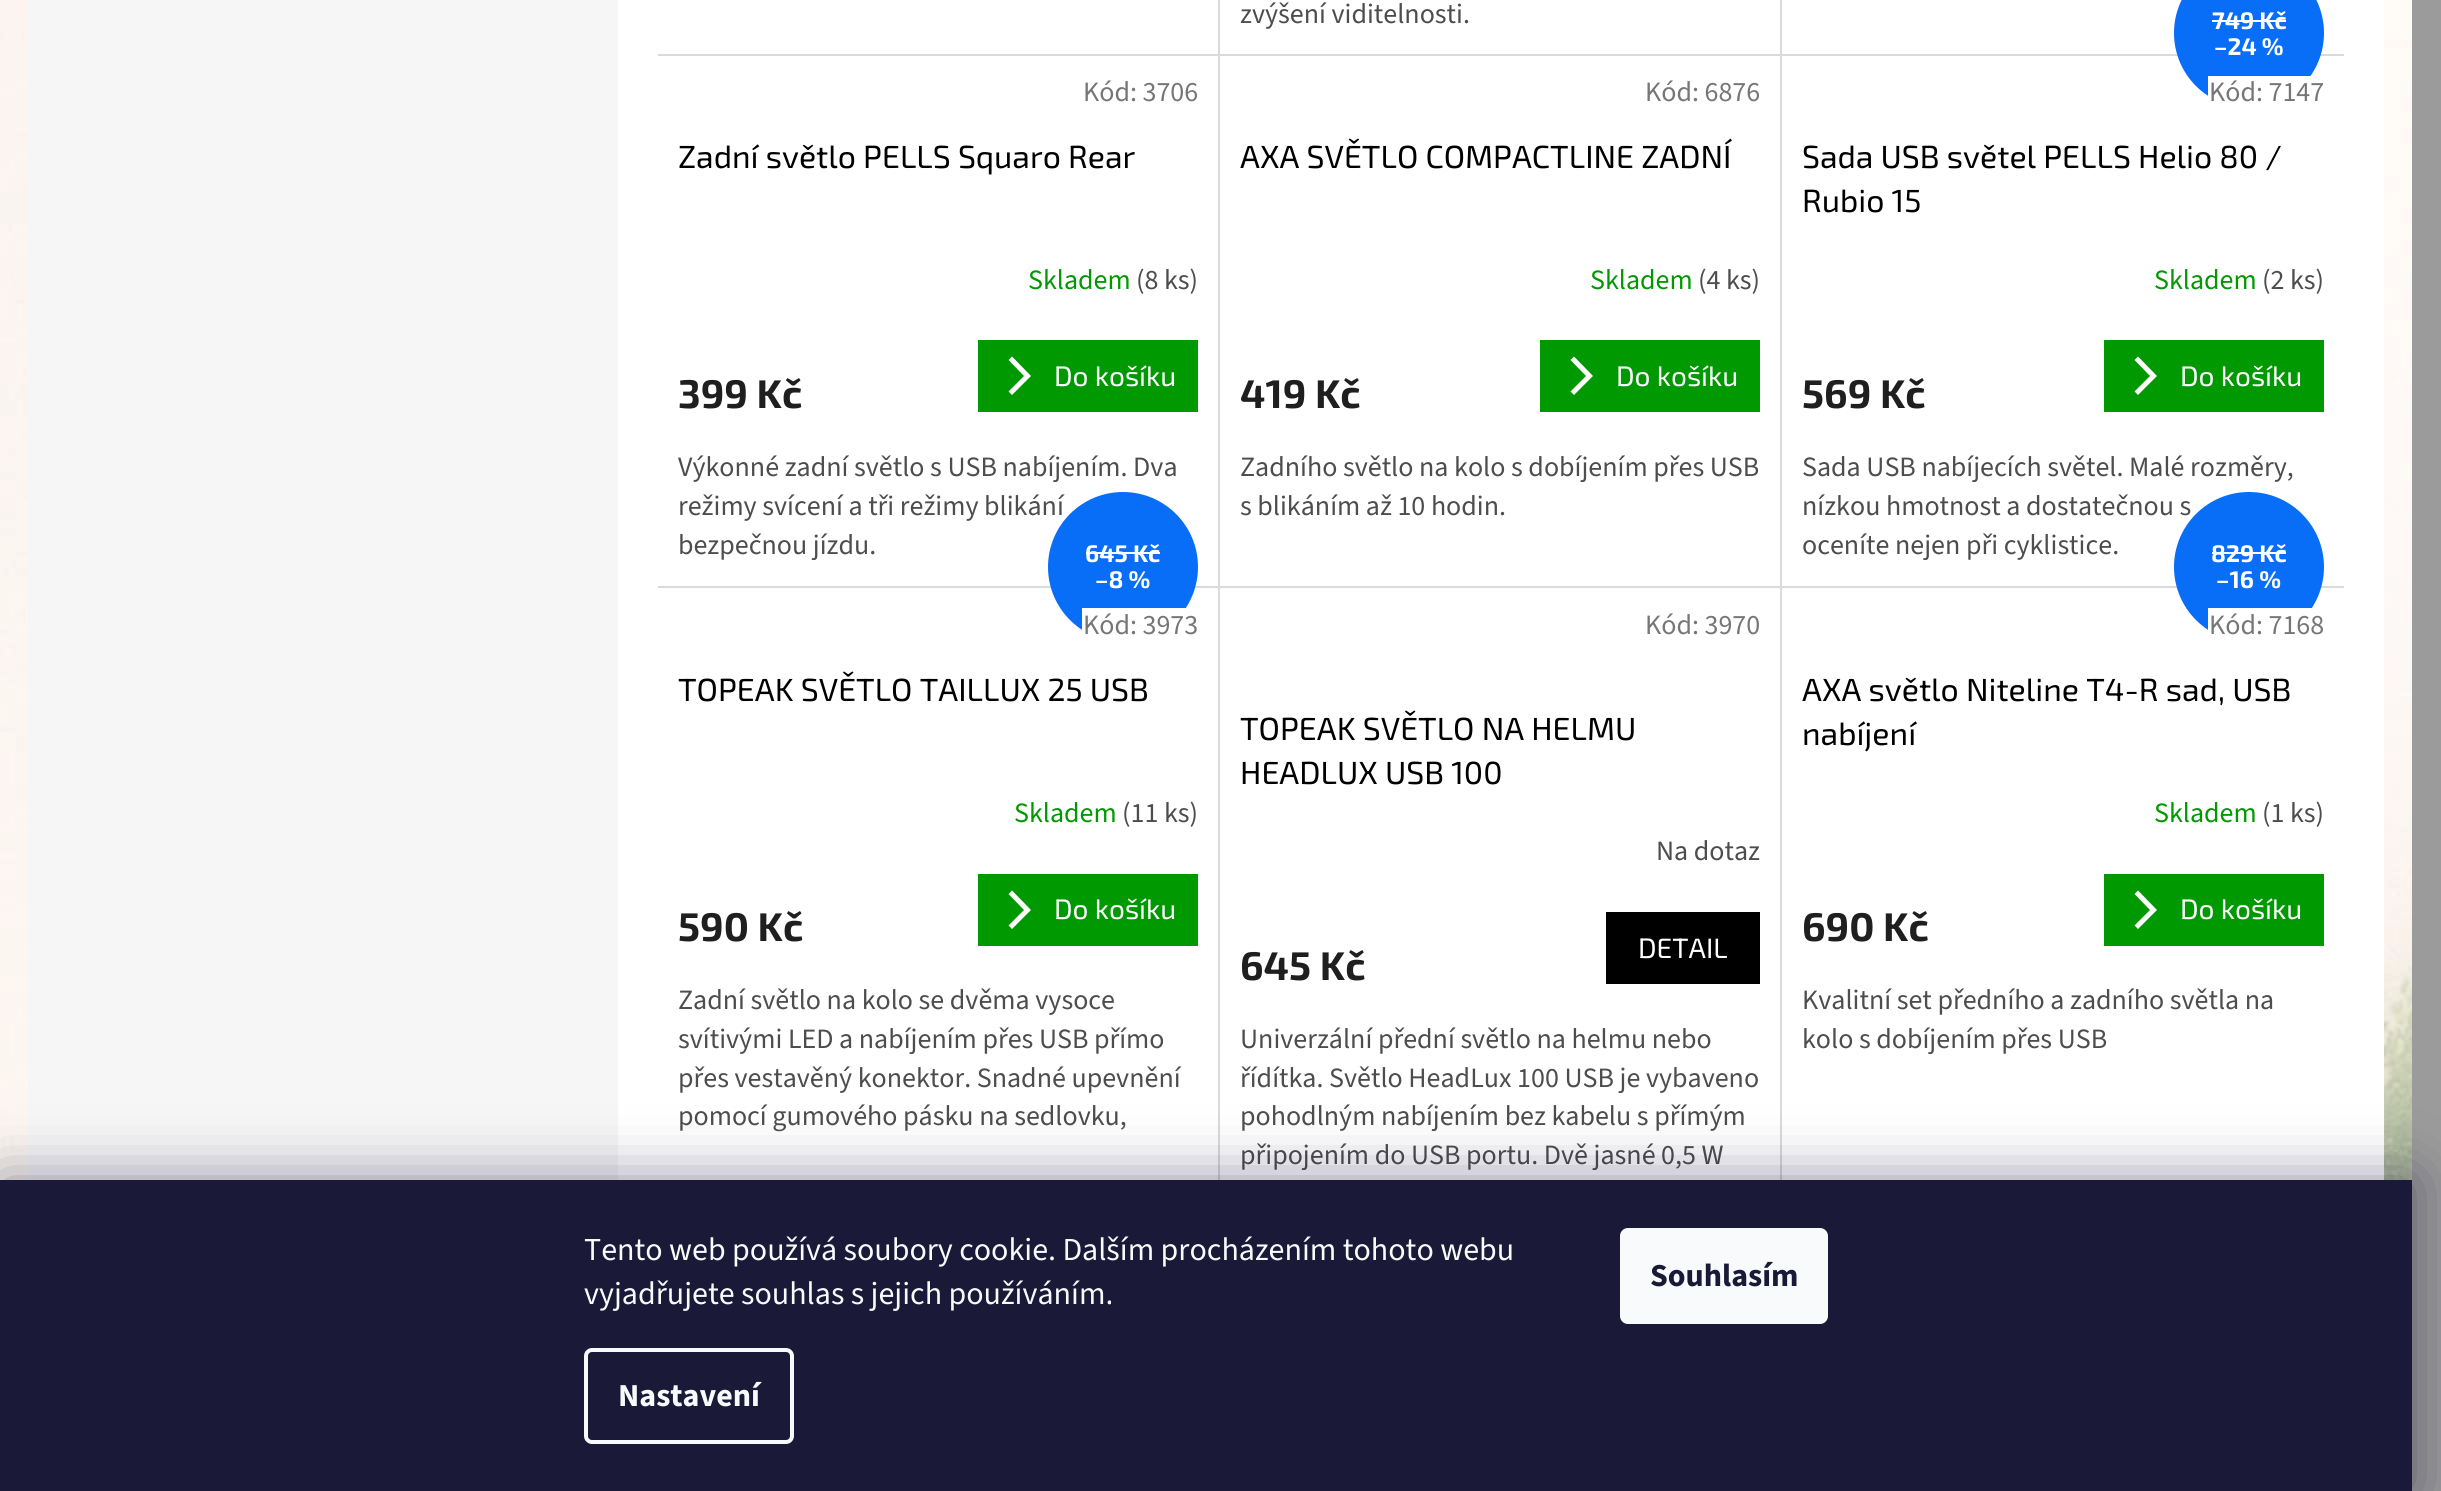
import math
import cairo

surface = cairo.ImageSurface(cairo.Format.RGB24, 2441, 1491)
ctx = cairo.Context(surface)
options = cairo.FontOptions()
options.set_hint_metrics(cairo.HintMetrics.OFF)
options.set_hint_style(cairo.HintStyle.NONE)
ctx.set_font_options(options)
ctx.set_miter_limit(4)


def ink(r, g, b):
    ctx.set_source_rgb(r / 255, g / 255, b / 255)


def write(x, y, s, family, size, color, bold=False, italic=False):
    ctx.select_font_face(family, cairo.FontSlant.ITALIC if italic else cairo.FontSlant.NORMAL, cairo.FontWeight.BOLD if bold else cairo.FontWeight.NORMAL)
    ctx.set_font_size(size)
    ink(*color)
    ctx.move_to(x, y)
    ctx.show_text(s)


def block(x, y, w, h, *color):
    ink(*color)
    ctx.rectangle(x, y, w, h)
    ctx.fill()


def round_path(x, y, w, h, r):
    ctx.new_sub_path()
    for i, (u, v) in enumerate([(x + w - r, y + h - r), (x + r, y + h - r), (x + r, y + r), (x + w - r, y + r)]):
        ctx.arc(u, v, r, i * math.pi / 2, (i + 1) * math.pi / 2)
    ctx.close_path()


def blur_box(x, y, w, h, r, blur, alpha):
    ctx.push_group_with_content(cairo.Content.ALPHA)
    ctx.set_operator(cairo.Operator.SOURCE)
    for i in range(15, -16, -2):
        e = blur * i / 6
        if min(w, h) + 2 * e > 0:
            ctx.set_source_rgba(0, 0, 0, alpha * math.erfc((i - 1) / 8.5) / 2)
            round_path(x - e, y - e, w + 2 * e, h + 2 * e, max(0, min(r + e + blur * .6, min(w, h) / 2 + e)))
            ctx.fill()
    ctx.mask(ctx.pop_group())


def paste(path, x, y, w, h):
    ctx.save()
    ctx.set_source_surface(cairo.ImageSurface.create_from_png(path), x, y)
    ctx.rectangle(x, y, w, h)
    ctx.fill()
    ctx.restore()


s1 = dict(family="Source Sans 3", size=28, color=(118, 118, 118))
s2 = dict(family="Exo 2", size=32, color=(0, 0, 0))
s3 = dict(family="Source Sans 3", size=28, color=(0, 153, 1))
s4 = dict(family="Source Sans 3", size=28, color=(77, 77, 77))
s5 = dict(family="Exo 2", size=40, color=(31, 31, 31), bold=True)
s6 = dict(family="Exo 2", size=28, color=(255, 255, 255))
s7 = dict(family="Exo 2", size=24, color=(255, 255, 255), bold=True)
s8 = dict(family="Source Sans 3", size=32, color=(248, 250, 251))
s9 = dict(family="Source Sans 3", size=32, color=(248, 250, 251), bold=True)
s10 = dict(family="Source Sans 3", size=32, color=(26, 25, 55), bold=True)

ink(155, 155, 155)
ctx.paint()
paste("pic1.png", 0, 0, 2412, 1180)
block(618, 0, 1766, 1180, 255, 255, 255)
block(28, 0, 590, 1180, 246, 246, 246)
block(658, 54, 1686, 2, 218, 218, 218)
block(1218, 54, 2, 532, 218, 218, 218)
write(1083, 101, "Kód: 3706", **s1)
write(678, 168, "Zadní světlo PELLS Squaro Rear", **s2)
write(1028, 289, "Skladem", **s3)
write(1136, 289, "(8 ks)", **s4)
write(678, 408, "399 Kč", **s5)
block(978, 340, 220, 72, 0, 153, 1)
ink(255, 255, 255)
ctx.new_path()
ctx.move_to(1012, 395)
ctx.line_to(1008.5, 391.5)
ctx.line_to(1024, 376)
ctx.line_to(1008.5, 360)
ctx.line_to(1012, 356.5)
ctx.line_to(1031, 376)
ctx.close_path()
ctx.fill()
write(1054, 386, "Do košíku", **s6)
write(678, 476, "Výkonné zadní světlo s USB nabíjením. Dva", **s4)
write(678, 515, "režimy svícení a tři režimy blikání", **s4)
write(678, 554, "bezpečnou jízdu.", **s4)
block(1218, 0, 2, 54, 218, 218, 218)
block(1780, 0, 2, 54, 218, 218, 218)
write(1240, 23, "zvýšení viditelnosti.", **s4)
ink(8, 109, 247)
ctx.new_path()
ctx.arc(2249, 33, 75, 0, 2 * math.pi)
ctx.fill()
write(2212, 29, "749 Kč", **s7)
block(2212, 20, 74, 2, 255, 255, 255)
write(2214, 55, "–24 %", **s7)
block(2208, 76, 103, 32, 255, 255, 255)
write(2209, 101, "Kód: 7147", **s1)
write(1802, 168, "Sada USB světel PELLS Helio 80 /", **s2)
write(1802, 212, "Rubio 15", **s2)
write(2154, 289, "Skladem", **s3)
write(2262, 289, "(2 ks)", **s4)
write(1802, 408, "569 Kč", **s5)
block(2104, 340, 220, 72, 0, 153, 1)
ink(255, 255, 255)
ctx.new_path()
ctx.move_to(2138, 395)
ctx.line_to(2134.5, 391.5)
ctx.line_to(2150, 376)
ctx.line_to(2134.5, 360)
ctx.line_to(2138, 356.5)
ctx.line_to(2157, 376)
ctx.close_path()
ctx.fill()
write(2180, 386, "Do košíku", **s6)
write(1802, 476, "Sada USB nabíjecích světel. Malé rozměry,", **s4)
write(1802, 515, "nízkou hmotnost a dostatečnou s", **s4)
write(1802, 554, "oceníte nejen při cyklistice.", **s4)
block(1780, 54, 2, 532, 218, 218, 218)
write(1645, 101, "Kód: 6876", **s1)
write(1240, 168, "AXA SVĚTLO COMPACTLINE ZADNÍ", **s2)
write(1590, 289, "Skladem", **s3)
write(1698, 289, "(4 ks)", **s4)
write(1240, 408, "419 Kč", **s5)
block(1540, 340, 220, 72, 0, 153, 1)
ink(255, 255, 255)
ctx.new_path()
ctx.move_to(1574, 395)
ctx.line_to(1570.5, 391.5)
ctx.line_to(1586, 376)
ctx.line_to(1570.5, 360)
ctx.line_to(1574, 356.5)
ctx.line_to(1593, 376)
ctx.close_path()
ctx.fill()
write(1616, 386, "Do košíku", **s6)
write(1240, 476, "Zadního světlo na kolo s dobíjením přes USB", **s4)
write(1240, 515, "s blikáním až 10 hodin.", **s4)
block(658, 586, 1686, 2, 218, 218, 218)
block(1218, 586, 2, 594, 218, 218, 218)
ink(8, 109, 247)
ctx.new_path()
ctx.arc(1123, 567, 75, 0, 2 * math.pi)
ctx.fill()
write(1085, 562, "645 Kč", **s7)
block(1086, 552, 74, 2, 255, 255, 255)
write(1095, 588, "–8 %", **s7)
block(1082, 608, 104, 34, 255, 255, 255)
write(1083, 634, "Kód: 3973", **s1)
write(678, 701, "TOPEAK SVĚTLO TAILLUX 25 USB", **s2)
write(1014, 822, "Skladem", **s3)
write(1122, 822, "(11 ks)", **s4)
write(678, 941, "590 Kč", **s5)
block(978, 874, 220, 72, 0, 153, 1)
ink(255, 255, 255)
ctx.new_path()
ctx.move_to(1012, 929)
ctx.line_to(1008.5, 925.5)
ctx.line_to(1024, 910)
ctx.line_to(1008.5, 894)
ctx.line_to(1012, 890.5)
ctx.line_to(1031, 910)
ctx.close_path()
ctx.fill()
write(1054, 919, "Do košíku", **s6)
write(678, 1009, "Zadní světlo na kolo se dvěma vysoce", **s4)
write(678, 1048, "svítivými LED a nabíjením přes USB přímo", **s4)
write(678, 1087, "přes vestavěný konektor. Snadné upevnění", **s4)
write(678, 1125, "pomocí gumového pásku na sedlovku,", **s4)
block(1780, 586, 2, 594, 218, 218, 218)
write(1645, 634, "Kód: 3970", **s1)
write(1240, 740, "TOPEAK SVĚTLO NA HELMU", **s2)
write(1240, 784, "HEADLUX USB 100", **s2)
write(1656, 860, "Na dotaz", **s4)
write(1240, 980, "645 Kč", **s5)
block(1606, 912, 154, 72, 0, 0, 0)
write(1638, 958, "DETAIL", **s6)
write(1240, 1048, "Univerzální přední světlo na helmu nebo", **s4)
write(1240, 1087, "řídítka. Světlo HeadLux 100 USB je vybaveno", **s4)
write(1240, 1125, "pohodlným nabíjením bez kabelu s přímým", **s4)
write(1240, 1164, "připojením do USB portu. Dvě jasné 0,5 W", **s4)
ink(8, 109, 247)
ctx.new_path()
ctx.arc(2249, 567, 75, 0, 2 * math.pi)
ctx.fill()
write(2211, 562, "829 Kč", **s7)
block(2212, 552, 74, 2, 255, 255, 255)
write(2216, 588, "–16 %", **s7)
block(2208, 608, 104, 34, 255, 255, 255)
write(2209, 634, "Kód: 7168", **s1)
write(1802, 701, "AXA světlo Niteline T4-R sad, USB", **s2)
write(1802, 745, "nabíjení", **s2)
write(2154, 822, "Skladem", **s3)
write(2262, 822, "(1 ks)", **s4)
write(1802, 941, "690 Kč", **s5)
block(2104, 874, 220, 72, 0, 153, 1)
ink(255, 255, 255)
ctx.new_path()
ctx.move_to(2138, 929)
ctx.line_to(2134.5, 925.5)
ctx.line_to(2150, 910)
ctx.line_to(2134.5, 894)
ctx.line_to(2138, 890.5)
ctx.line_to(2157, 910)
ctx.close_path()
ctx.fill()
write(2180, 919, "Do košíku", **s6)
write(1802, 1009, "Kvalitní set předního a zadního světla na", **s4)
write(1802, 1048, "kolo s dobíjením přes USB", **s4)
ink(27, 25, 57)
blur_box(0, 1180, 2412, 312, 0, 30, 0.5)
block(0, 1180, 2412, 311, 26, 25, 55)
write(584, 1260, "Tento web používá soubory cookie. Dalším procházením tohoto webu", **s8)
write(584, 1304, "vyjadřujete souhlas s jejich používáním.", **s8)
round_path(586, 1350, 206, 92, 6)
ctx.set_line_width(4)
ctx.stroke()
write(618, 1406, "Nastavení", **s9)
round_path(1620, 1228, 208, 96, 8)
ctx.fill()
write(1650, 1286, "Souhlasím", **s10)
surface.write_to_png("screenshot.png")
